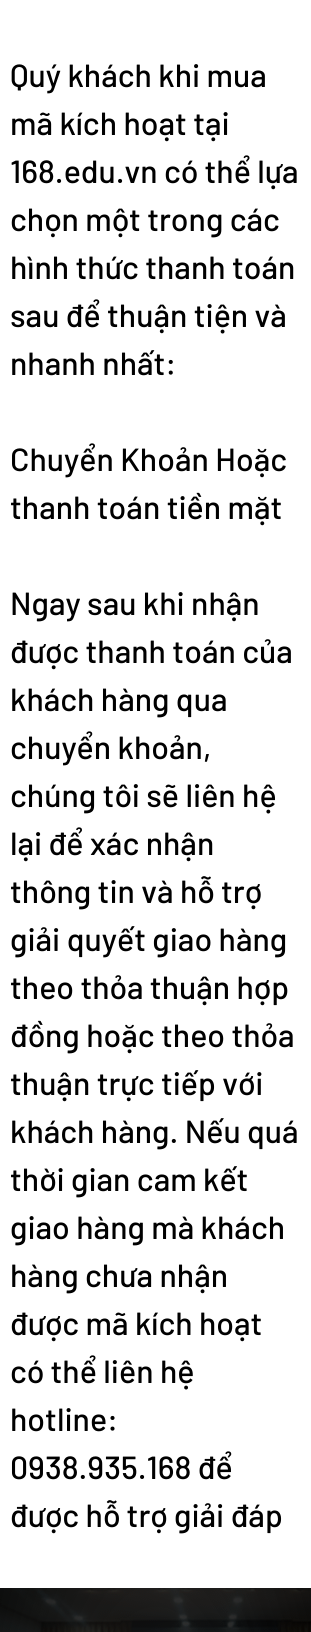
import math
import cairo

surface = cairo.ImageSurface(cairo.Format.RGB24, 311, 1632)
ctx = cairo.Context(surface)
options = cairo.FontOptions()
options.set_hint_metrics(cairo.HintMetrics.OFF)
options.set_hint_style(cairo.HintStyle.NONE)
ctx.set_font_options(options)
ctx.set_miter_limit(4)


def ink(r, g, b):
    ctx.set_source_rgb(r / 255, g / 255, b / 255)


def write(x, y, s, family, size, color, bold=False, italic=False):
    ctx.select_font_face(family, cairo.FontSlant.ITALIC if italic else cairo.FontSlant.NORMAL, cairo.FontWeight.BOLD if bold else cairo.FontWeight.NORMAL)
    ctx.set_font_size(size)
    ink(*color)
    ctx.move_to(x, y)
    ctx.show_text(s)


def paste(path, x, y, w, h):
    ctx.save()
    ctx.set_source_surface(cairo.ImageSurface.create_from_png(path), x, y)
    ctx.rectangle(x, y, w, h)
    ctx.fill()
    ctx.restore()


s1 = dict(family="Barlow Medium", size=32, color=(0, 0, 0))

ink(255, 255, 255)
ctx.paint()
write(10, 87, "Quý khách khi mua", **s1)
write(10, 135, "mã kích hoạt tại", **s1)
write(10, 183, "168.edu.vn có thể lựa", **s1)
write(10, 231, "chọn một trong các", **s1)
write(10, 279, "hình thức thanh toán", **s1)
write(10, 327, "sau để thuận tiện và", **s1)
write(10, 375, "nhanh nhất:", **s1)
write(10, 471, "Chuyển Khoản Hoặc", **s1)
write(10, 519, "thanh toán tiền mặt", **s1)
write(10, 615, "Ngay sau khi nhận", **s1)
write(10, 663, "được thanh toán của", **s1)
write(10, 711, "khách hàng qua", **s1)
write(10, 759, "chuyển khoản,", **s1)
write(10, 807, "chúng tôi sẽ liên hệ", **s1)
write(10, 855, "lại để xác nhận", **s1)
write(10, 903, "thông tin và hỗ trợ", **s1)
write(10, 951, "giải quyết giao hàng", **s1)
write(10, 999, "theo thỏa thuận hợp", **s1)
write(10, 1047, "đồng hoặc theo thỏa", **s1)
write(10, 1095, "thuận trực tiếp với", **s1)
write(10, 1143, "khách hàng. Nếu quá", **s1)
write(10, 1191, "thời gian cam kết", **s1)
write(10, 1239, "giao hàng mà khách", **s1)
write(10, 1287, "hàng chưa nhận", **s1)
write(10, 1335, "được mã kích hoạt", **s1)
write(10, 1383, "có thể liên hệ", **s1)
write(10, 1431, "hotline:", **s1)
write(10, 1479, "0938.935.168 để", **s1)
write(10, 1527, "được hỗ trợ giải đáp", **s1)
paste("pic1.png", 0, 1588, 311, 44)
surface.write_to_png("screenshot.png")
